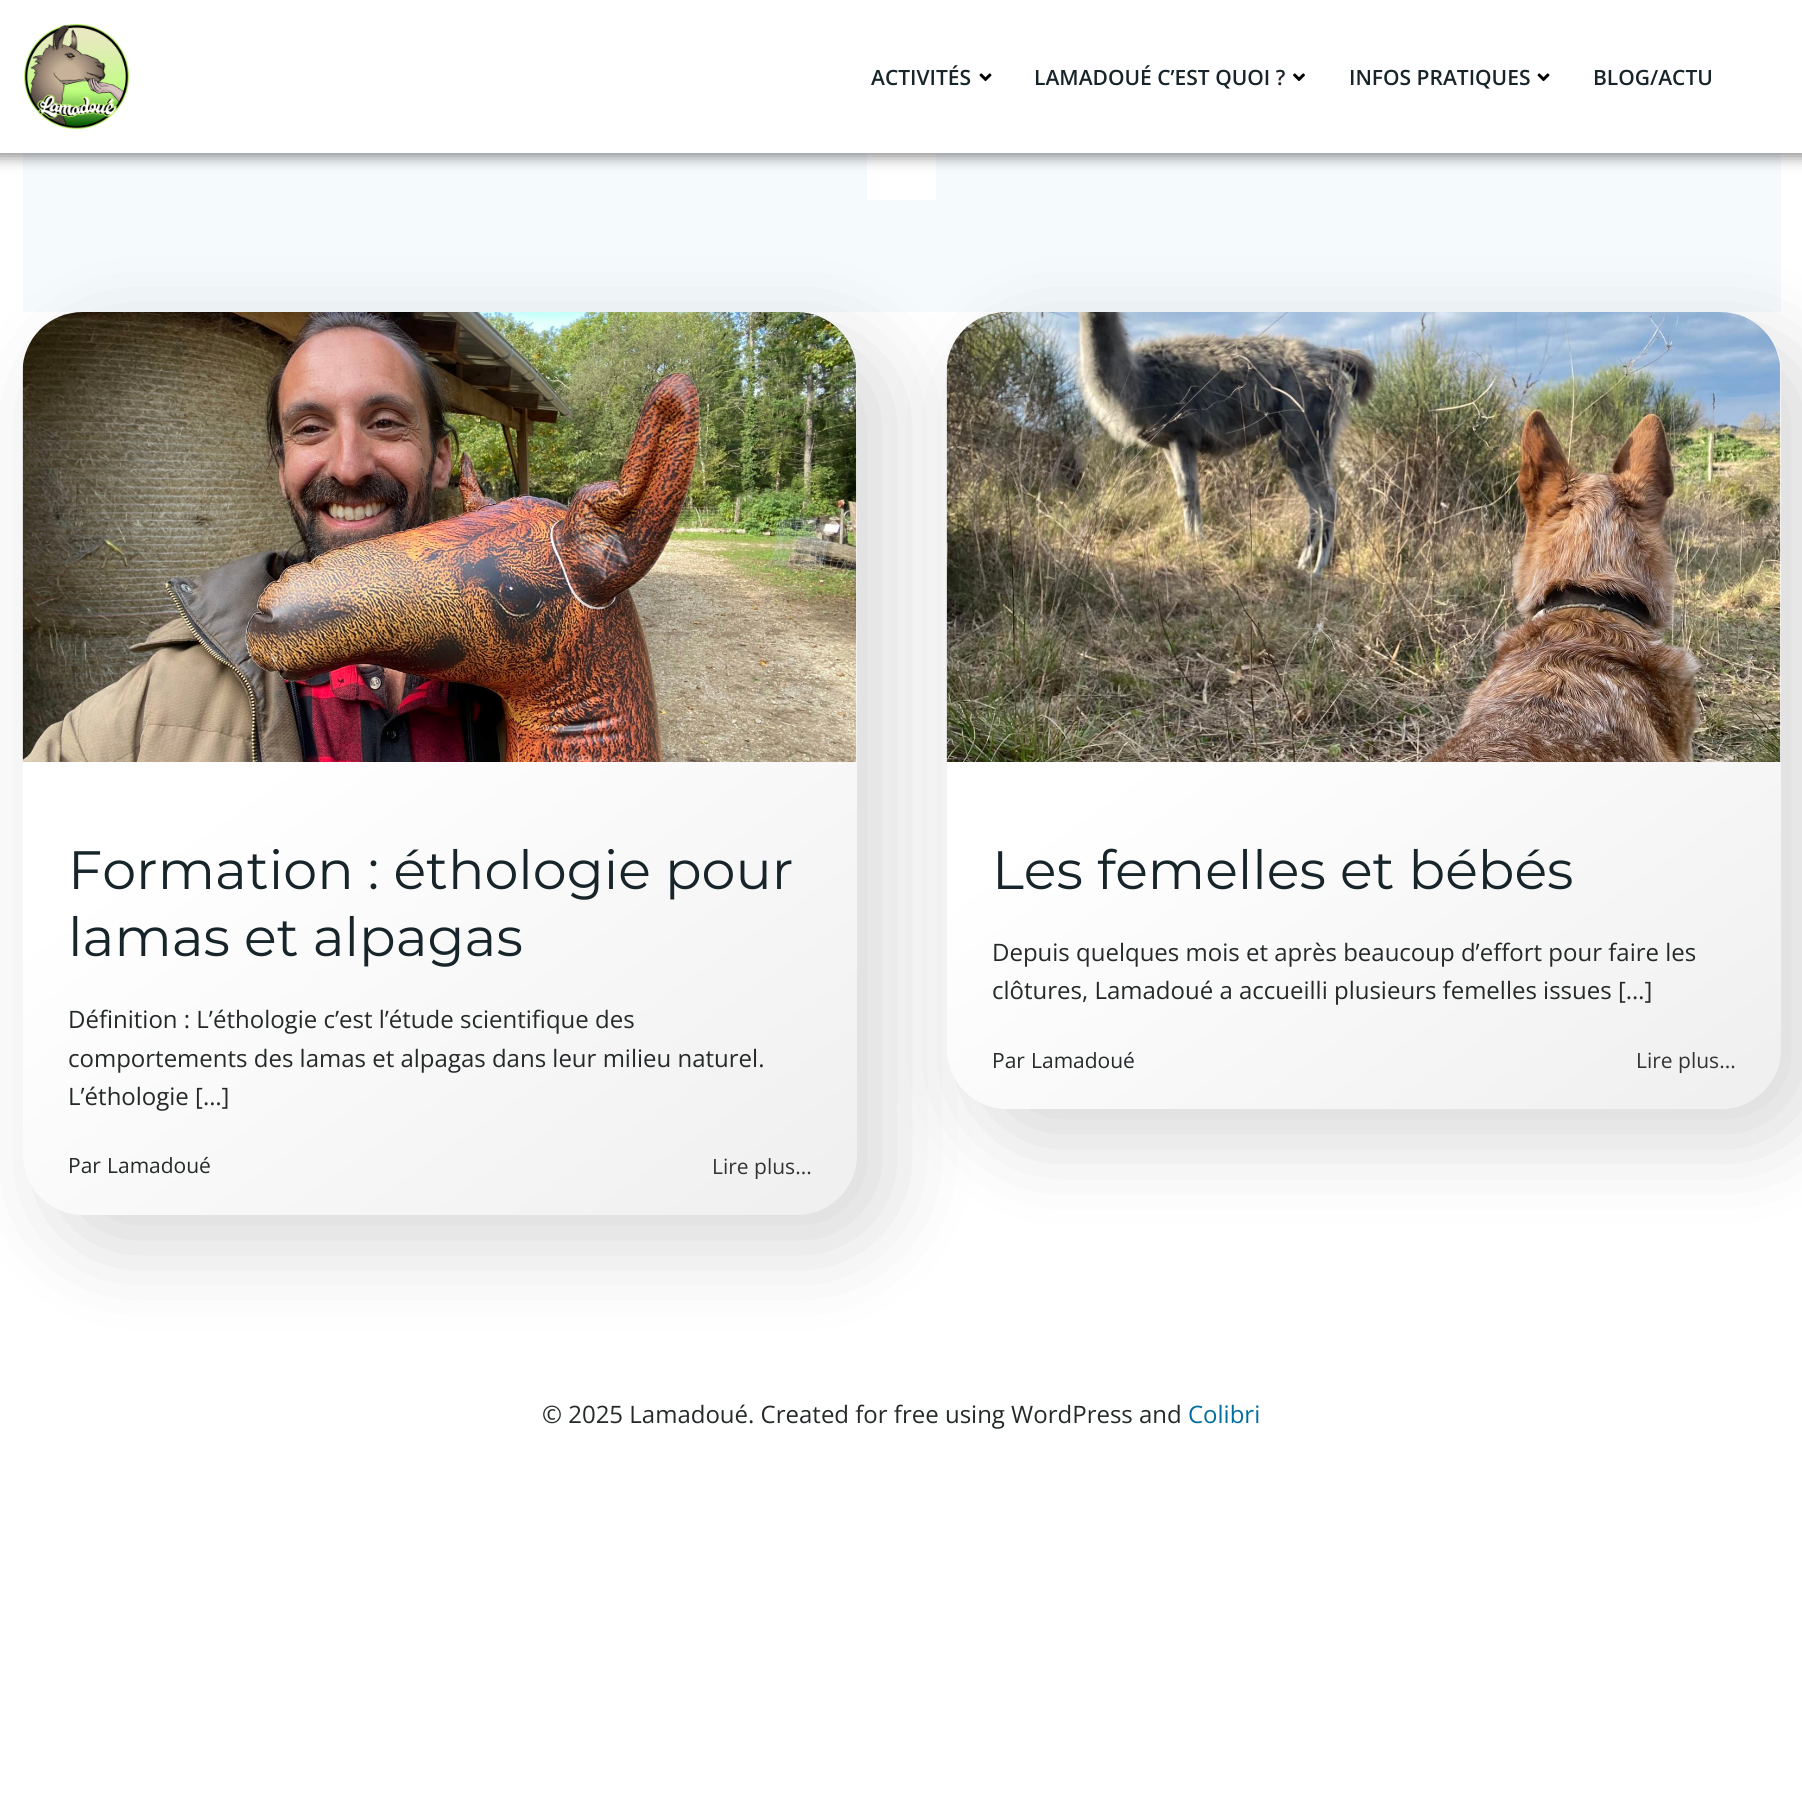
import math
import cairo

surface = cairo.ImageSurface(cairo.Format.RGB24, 1802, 1802)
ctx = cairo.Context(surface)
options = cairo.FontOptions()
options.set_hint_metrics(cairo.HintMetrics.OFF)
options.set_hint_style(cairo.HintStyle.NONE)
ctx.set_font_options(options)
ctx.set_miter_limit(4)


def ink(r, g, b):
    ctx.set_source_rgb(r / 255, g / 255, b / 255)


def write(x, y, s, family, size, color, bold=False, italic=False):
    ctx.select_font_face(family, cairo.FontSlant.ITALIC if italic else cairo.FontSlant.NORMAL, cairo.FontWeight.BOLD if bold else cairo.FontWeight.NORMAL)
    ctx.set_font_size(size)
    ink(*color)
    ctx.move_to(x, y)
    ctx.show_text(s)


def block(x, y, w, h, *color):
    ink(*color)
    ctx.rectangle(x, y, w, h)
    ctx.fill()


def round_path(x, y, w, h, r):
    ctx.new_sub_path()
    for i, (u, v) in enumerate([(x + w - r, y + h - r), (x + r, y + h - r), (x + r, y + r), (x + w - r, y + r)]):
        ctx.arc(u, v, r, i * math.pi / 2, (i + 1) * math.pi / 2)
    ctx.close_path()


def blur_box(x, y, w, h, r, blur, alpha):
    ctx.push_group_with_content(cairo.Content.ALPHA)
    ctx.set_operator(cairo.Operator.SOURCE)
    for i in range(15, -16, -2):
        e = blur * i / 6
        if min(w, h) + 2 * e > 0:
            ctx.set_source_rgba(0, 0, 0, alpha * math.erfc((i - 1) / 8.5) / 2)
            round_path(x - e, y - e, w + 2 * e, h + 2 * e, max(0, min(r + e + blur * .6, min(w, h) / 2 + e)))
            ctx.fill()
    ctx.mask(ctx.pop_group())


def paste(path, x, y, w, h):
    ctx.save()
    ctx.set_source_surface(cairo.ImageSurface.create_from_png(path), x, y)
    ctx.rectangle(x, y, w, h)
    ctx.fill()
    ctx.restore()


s1 = dict(family="Open Sans SemiBold", size=21, color=(23, 37, 42))
s2 = dict(family="Montserrat", size=54, color=(23, 37, 42))
s3 = dict(family="Open Sans", size=24, color=(37, 41, 42))
s4 = dict(family="Open Sans", size=21, color=(37, 41, 42))
s5 = dict(family="Open Sans", size=21, color=(51, 51, 51))
s6 = dict(family="Open Sans", size=24, color=(2, 110, 159))

ink(255, 255, 255)
ctx.paint()
block(23, 153, 1758, 159, 245, 250, 253)
block(867, 153, 69, 47, 255, 255, 255)
ink(0, 0, 0)
blur_box(-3, -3, 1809, 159, 0, 7.5, 0.5)
block(0, 0, 1802, 153, 255, 255, 255)
paste("pic1.png", 24, 24, 105, 105)
write(871, 85, "ACTIVITÉS", **s1)
paste("pic2.png", 979, 73, 13, 9)
write(1034, 85, "LAMADOUÉ C’EST QUOI ?", **s1)
paste("pic3.png", 1293, 73, 12, 8)
write(1349, 85, "INFOS PRATIQUES", **s1)
paste("pic2.png", 1537, 73, 13, 9)
write(1593, 85, "BLOG/ACTU", **s1)
ink(0, 0, 0)
blur_box(50, 339, 840, 909, 63, 45, 0.15)
gradient = cairo.LinearGradient(90, 265, 789, 1262)
gradient.add_color_stop_rgba(0.42, 1, 1, 1, 1)
gradient.add_color_stop_rgba(1, 0.937, 0.937, 0.937, 1)
ctx.set_source(gradient)
round_path(23, 312, 834, 903, 60)
ctx.fill()
paste("pic4.png", 22, 312, 835, 450)
write(68, 889, "Formation : éthologie pour", **s2)
write(68, 956, "lamas et alpagas", **s2)
write(68, 1028, "Définition : L’éthologie c’est l’étude scientifique des", **s3)
write(68, 1067, "comportements des lamas et alpagas dans leur milieu naturel.", **s3)
write(68, 1105, "L’éthologie […]", **s3)
write(68, 1173, "Par", **s4)
write(107, 1173, "Lamadoué", **s4)
write(712, 1174, "Lire plus...", **s5)
ink(0, 0, 0)
blur_box(974, 339, 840, 803, 63, 45, 0.15)
gradient = cairo.LinearGradient(1039, 247, 1688, 1173)
gradient.add_color_stop_rgba(0.42, 1, 1, 1, 1)
gradient.add_color_stop_rgba(1, 0.937, 0.937, 0.937, 1)
ctx.set_source(gradient)
round_path(947, 312, 834, 797, 60)
ctx.fill()
paste("pic5.png", 946, 312, 835, 450)
write(992, 889, "Les femelles et bébés", **s2)
write(992, 961, "Depuis quelques mois et après beaucoup d’effort pour faire les", **s3)
write(992, 999, "clôtures, Lamadoué a accueilli plusieurs femelles issues […]", **s3)
write(992, 1068, "Par", **s4)
write(1031, 1068, "Lamadoué", **s4)
write(1636, 1068, "Lire plus...", **s5)
write(542, 1423, "© 2025 Lamadoué. Created for free using WordPress and", **s3)
write(1188, 1423, "Colibri", **s6)
surface.write_to_png("screenshot.png")
